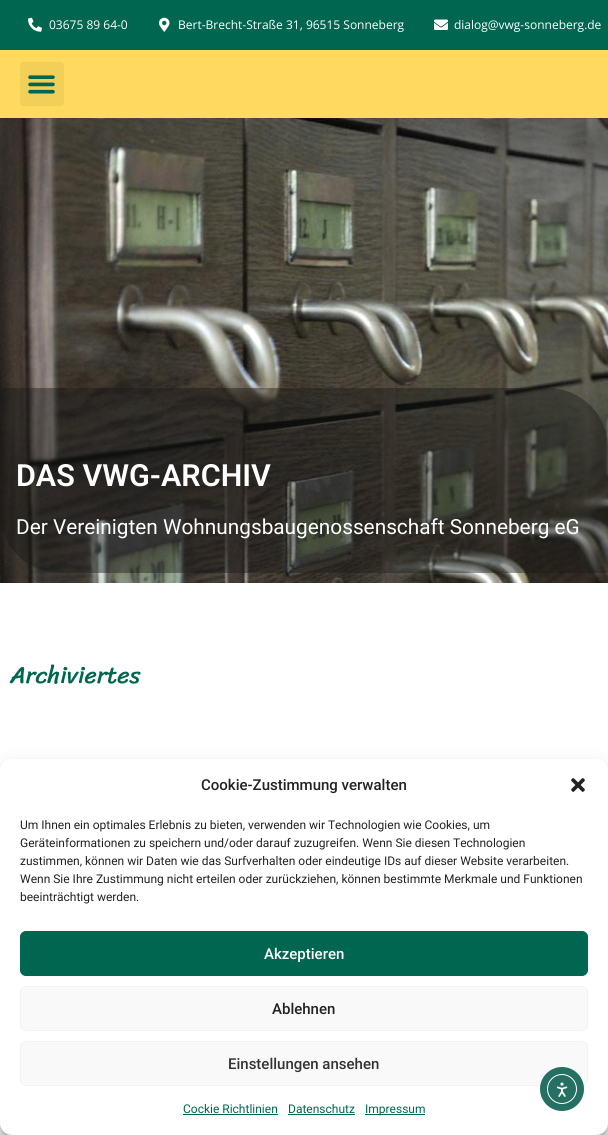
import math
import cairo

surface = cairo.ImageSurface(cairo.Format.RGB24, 608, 1135)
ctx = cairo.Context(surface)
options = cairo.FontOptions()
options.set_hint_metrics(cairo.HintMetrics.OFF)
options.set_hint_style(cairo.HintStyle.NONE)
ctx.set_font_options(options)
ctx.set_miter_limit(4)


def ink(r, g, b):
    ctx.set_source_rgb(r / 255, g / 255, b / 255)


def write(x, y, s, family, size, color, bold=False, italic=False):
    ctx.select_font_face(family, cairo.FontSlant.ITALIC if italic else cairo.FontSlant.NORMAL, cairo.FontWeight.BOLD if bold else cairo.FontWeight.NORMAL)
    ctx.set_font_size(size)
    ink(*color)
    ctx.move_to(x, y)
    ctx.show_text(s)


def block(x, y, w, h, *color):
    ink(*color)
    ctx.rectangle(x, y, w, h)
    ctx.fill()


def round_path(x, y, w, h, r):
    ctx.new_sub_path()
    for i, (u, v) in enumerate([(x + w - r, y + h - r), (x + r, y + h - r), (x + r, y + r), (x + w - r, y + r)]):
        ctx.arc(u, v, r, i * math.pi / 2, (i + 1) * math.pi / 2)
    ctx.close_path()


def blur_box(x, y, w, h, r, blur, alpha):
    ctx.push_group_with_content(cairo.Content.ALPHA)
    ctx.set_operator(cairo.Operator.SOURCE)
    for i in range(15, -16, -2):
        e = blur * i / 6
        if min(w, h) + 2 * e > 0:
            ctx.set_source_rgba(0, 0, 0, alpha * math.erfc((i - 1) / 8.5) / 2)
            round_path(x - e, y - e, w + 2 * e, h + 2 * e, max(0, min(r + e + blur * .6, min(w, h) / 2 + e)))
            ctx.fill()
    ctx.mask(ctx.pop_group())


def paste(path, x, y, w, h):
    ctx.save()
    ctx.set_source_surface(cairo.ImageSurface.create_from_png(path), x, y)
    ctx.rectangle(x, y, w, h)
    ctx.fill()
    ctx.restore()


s1 = dict(family="Open Sans", size=12, color=(255, 255, 255))
s2 = dict(family="Roboto SemiBold", size=30.5, color=(255, 255, 255))
s3 = dict(family="Roboto", size=20.8, color=(255, 255, 255))
s4 = dict(family="Sriracha", size=24, color=(0, 102, 80))
s5 = dict(family="Roboto Medium", size=15, color=(34, 34, 34))
s6 = dict(family="Roboto", size=12, color=(34, 34, 34))
s7 = dict(family="Roboto Medium", size=15, color=(255, 255, 255))
s8 = dict(family="Roboto Medium", size=15, color=(51, 51, 51))
s9 = dict(family="Roboto", size=12, color=(0, 102, 80))

ink(255, 255, 255)
ctx.paint()
block(0, 0, 608, 50, 0, 102, 80)
paste("pic1.png", 28, 17, 14, 15)
write(49, 29, "03675 89 64-0", **s1)
paste("pic2.png", 159, 17, 11, 15)
write(178, 29, "Bert-Brecht-Straße 31, 96515 Sonneberg", **s1)
paste("pic3.png", 434, 19, 14, 11)
write(454, 29, "dialog@vwg-sonneberg.de", **s1)
block(0, 50, 608, 68, 255, 218, 94)
ink(242, 207, 89)
round_path(20, 62, 44, 44, 3)
ctx.fill()
paste("pic4.png", 28, 75, 27, 19)
paste("pic5.png", 0, 118, 608, 465)
ctx.set_source_rgba(0.094, 0.094, 0.094, 0.43)
ctx.new_path()
ctx.move_to(0, 388)
ctx.line_to(548, 388)
ctx.curve_to(581, 388, 608, 415, 608, 448)
ctx.line_to(608, 573)
ctx.line_to(60, 573)
ctx.curve_to(27, 573, 0, 546, 0, 513)
ctx.close_path()
ctx.fill()
write(16, 486, "DAS VWG-ARCHIV", **s2)
write(16, 534, "Der Vereinigten Wohnungsbaugenossenschaft Sonneberg eG", **s3)
write(10, 683, "Archiviertes", **s4)
ink(0, 0, 0)
blur_box(0, 765, 608, 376, 12, 3, 0.23)
blur_box(0, 769, 608, 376, 12, 10, 0.19)
ink(255, 255, 255)
round_path(0, 759, 608, 376, 12)
ctx.fill()
write(201, 790, "Cookie-Zustimmung verwalten", **s5)
paste("pic6.png", 571, 778, 14, 14)
write(20, 829, "Um Ihnen ein optimales Erlebnis zu bieten, verwenden wir Technologien wie Cookies, um", **s6)
write(20, 847, "Geräteinformationen zu speichern und/oder darauf zuzugreifen. Wenn Sie diesen Technologien", **s6)
write(20, 865, "zustimmen, können wir Daten wie das Surfverhalten oder eindeutige IDs auf dieser Website verarbeiten.", **s6)
write(20, 883, "Wenn Sie Ihre Zustimmung nicht erteilen oder zurückziehen, können bestimmte Merkmale und Funktionen", **s6)
write(20, 901, "beeinträchtigt werden.", **s6)
ink(0, 102, 80)
round_path(20.5, 931.5, 567, 44, 5.5)
ctx.fill_preserve()
ctx.set_line_width(1)
ctx.stroke()
write(264, 959, "Akzeptieren", **s7)
ink(249, 249, 249)
round_path(20.5, 986.5, 567, 44, 5.5)
ctx.fill_preserve()
ink(242, 242, 242)
ctx.stroke()
write(272, 1014, "Ablehnen", **s5)
ink(249, 249, 249)
round_path(20.5, 1041.5, 567, 44, 5.5)
ctx.fill_preserve()
ink(242, 242, 242)
ctx.stroke()
write(228, 1069, "Einstellungen ansehen", **s8)
write(183, 1113, "Cockie Richtlinien", **s9)
block(183, 1114, 95, 1, 0, 102, 80)
write(288, 1113, "Datenschutz", **s9)
block(288, 1114, 67, 1, 0, 102, 80)
block(365, 1114, 60, 1, 0, 102, 80)
write(365, 1113, "Impressum", **s9)
ink(37, 112, 99)
ctx.new_path()
ctx.arc(562, 1089, 22, 0, 2 * math.pi)
ctx.fill()
ctx.arc(562, 1089, 14.5, 0, 2 * math.pi)
ink(255, 255, 255)
ctx.stroke()
paste("pic7.png", 556, 1082, 12, 15)
surface.write_to_png("screenshot.png")
